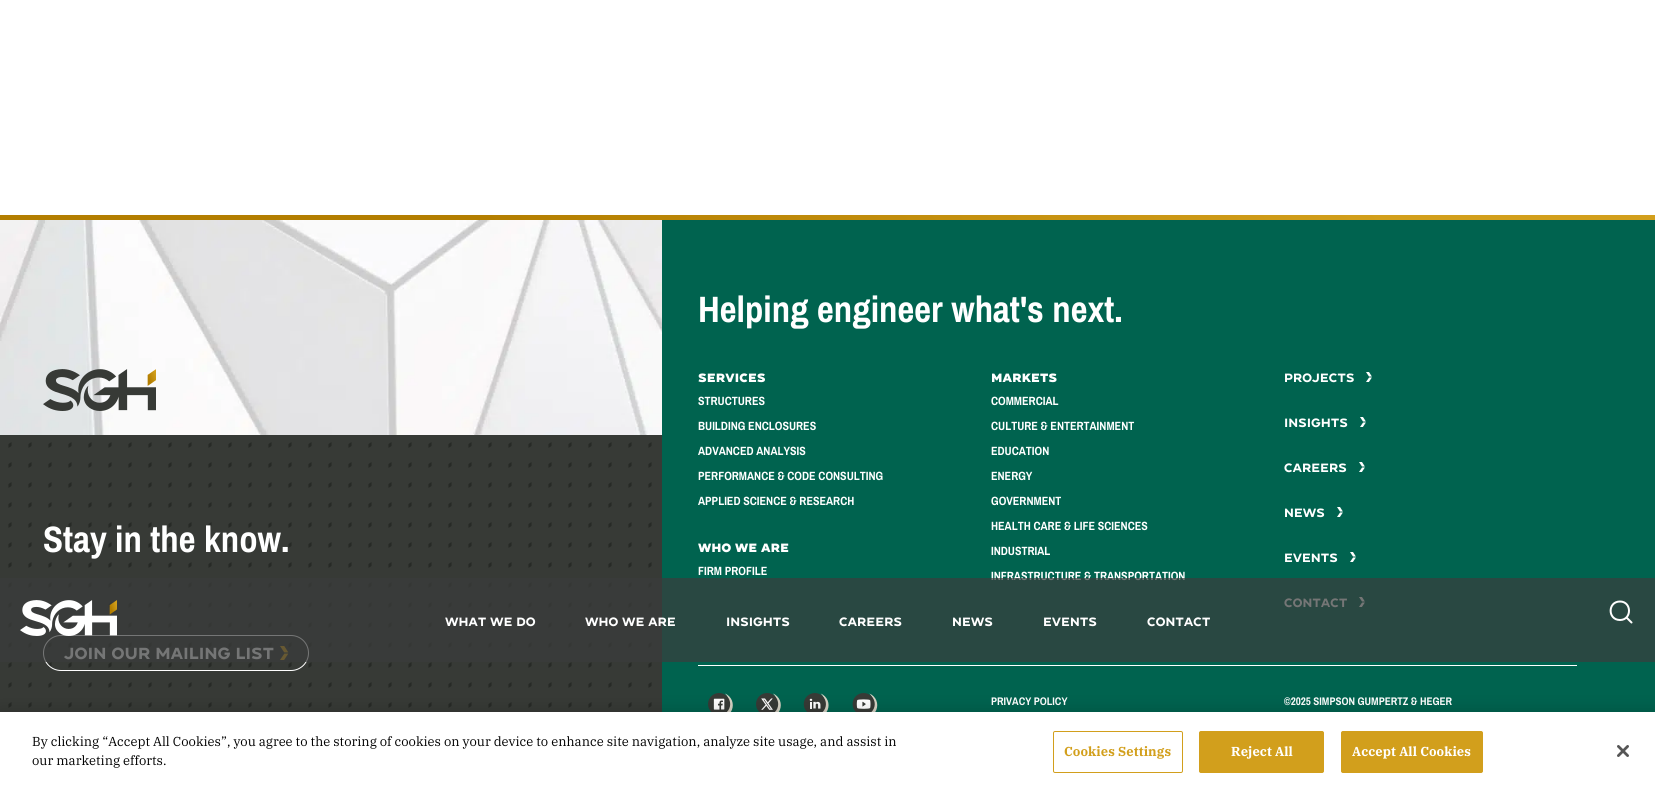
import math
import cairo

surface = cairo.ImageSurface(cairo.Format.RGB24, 1655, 794)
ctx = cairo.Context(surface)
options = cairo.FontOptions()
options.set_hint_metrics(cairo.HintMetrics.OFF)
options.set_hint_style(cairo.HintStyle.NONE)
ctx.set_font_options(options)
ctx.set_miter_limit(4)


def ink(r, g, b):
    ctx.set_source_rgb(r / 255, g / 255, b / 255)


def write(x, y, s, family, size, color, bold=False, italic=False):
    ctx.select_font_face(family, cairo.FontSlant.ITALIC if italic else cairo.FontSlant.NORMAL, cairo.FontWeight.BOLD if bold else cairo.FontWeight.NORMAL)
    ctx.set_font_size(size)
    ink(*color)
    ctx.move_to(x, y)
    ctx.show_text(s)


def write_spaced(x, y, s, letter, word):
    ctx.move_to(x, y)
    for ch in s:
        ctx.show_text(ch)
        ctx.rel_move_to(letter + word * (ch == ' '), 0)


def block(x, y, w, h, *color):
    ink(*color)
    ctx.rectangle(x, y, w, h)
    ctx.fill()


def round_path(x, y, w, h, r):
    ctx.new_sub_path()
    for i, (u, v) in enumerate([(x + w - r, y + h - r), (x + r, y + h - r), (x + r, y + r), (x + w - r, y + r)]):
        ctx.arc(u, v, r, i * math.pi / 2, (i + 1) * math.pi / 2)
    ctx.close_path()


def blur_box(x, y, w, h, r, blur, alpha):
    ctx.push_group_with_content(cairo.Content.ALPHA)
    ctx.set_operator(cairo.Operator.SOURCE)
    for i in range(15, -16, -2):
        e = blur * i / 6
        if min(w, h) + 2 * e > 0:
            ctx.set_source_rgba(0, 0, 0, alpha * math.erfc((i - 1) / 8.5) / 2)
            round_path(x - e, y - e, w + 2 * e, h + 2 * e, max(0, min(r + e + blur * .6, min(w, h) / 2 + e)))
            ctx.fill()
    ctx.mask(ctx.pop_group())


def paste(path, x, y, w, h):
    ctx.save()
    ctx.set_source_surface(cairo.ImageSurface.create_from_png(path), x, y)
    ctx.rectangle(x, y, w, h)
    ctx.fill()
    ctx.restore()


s1 = dict(family="Pragati Narrow", size=40, color=(255, 255, 255), bold=True)
s2 = dict(family="Pragati Narrow", size=13, color=(255, 255, 255), bold=True)
s3 = dict(family="Pragati Narrow", size=12, color=(255, 255, 255), bold=True)
s4 = dict(family="IBM Plex Serif", size=13, color=(0, 0, 0))

ink(255, 255, 255)
ctx.paint()
gradient = cairo.LinearGradient(321, 622, 1334, -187)
gradient.add_color_stop_rgba(0.29, 0.702, 0.494, 0, 1)
gradient.add_color_stop_rgba(0.84, 0.824, 0.624, 0.11, 1)
ctx.set_source(gradient)
ctx.rectangle(0, 215, 1655, 5)
ctx.fill()
paste("pic1.png", 0, 220, 662, 215)
paste("pic2.png", 43, 369, 113, 42)
paste("pic3.png", 0, 435, 662, 277)
write(43, 552, "Stay in the know.", **s1)
round_path(43.5, 635.5, 265, 35, 17.5)
ctx.set_line_width(1)
ctx.stroke()
paste("pic4.png", 64, 647, 210, 13)
paste("pic5.png", 280, 646, 9, 14)
block(662, 220, 993, 492, 0, 99, 79)
write(698, 322, "Helping engineer what's next.", **s1)
paste("pic6.png", 698, 373, 67, 10)
write(698, 405, "STRUCTURES", **s2)
write(698, 430, "BUILDING ENCLOSURES", **s2)
write(698, 455, "ADVANCED ANALYSIS", **s2)
write(698, 480, "PERFORMANCE & CODE CONSULTING", **s2)
write(698, 505, "APPLIED SCIENCE & RESEARCH", **s2)
paste("pic7.png", 698, 543, 91, 10)
write(698, 575, "FIRM PROFILE", **s2)
paste("pic8.png", 992, 373, 65, 10)
write(991, 405, "COMMERCIAL", **s2)
write(991, 430, "CULTURE & ENTERTAINMENT", **s2)
write(991, 455, "EDUCATION", **s2)
write(991, 480, "ENERGY", **s2)
write(991, 505, "GOVERNMENT", **s2)
write(991, 530, "HEALTH CARE & LIFE SCIENCES", **s2)
write(991, 555, "INDUSTRIAL", **s2)
write(991, 580, "INFRASTRUCTURE & TRANSPORTATION", **s2)
paste("pic9.png", 1285, 373, 69, 10)
paste("pic10.png", 1366, 372, 6, 10)
paste("pic11.png", 1285, 418, 63, 10)
paste("pic10.png", 1360, 417, 6, 10)
paste("pic12.png", 1284, 463, 63, 10)
paste("pic10.png", 1359, 462, 6, 10)
paste("pic13.png", 1285, 508, 40, 10)
paste("pic10.png", 1337, 507, 6, 10)
paste("pic14.png", 1285, 553, 53, 10)
paste("pic10.png", 1350, 552, 6, 10)
paste("pic15.png", 1284, 598, 63, 10)
paste("pic10.png", 1359, 597, 6, 10)
block(698, 665, 879, 1, 255, 255, 255)
paste("pic16.png", 708, 693, 25, 19)
paste("pic17.png", 756, 693, 25, 19)
paste("pic18.png", 803, 693, 26, 19)
paste("pic19.png", 852, 693, 26, 19)
write(991, 705, "PRIVACY POLICY", **s3)
write(1284, 705, "©2025 SIMPSON GUMPERTZ & HEGER", **s3)
ctx.set_source_rgba(0.231, 0.239, 0.239, 0.7)
ctx.rectangle(0, 578, 1655, 84)
ctx.fill()
paste("pic20.png", 20, 600, 97, 36)
paste("pic21.png", 445, 617, 91, 10)
paste("pic22.png", 585, 617, 90, 10)
paste("pic23.png", 727, 617, 63, 10)
paste("pic24.png", 839, 617, 63, 10)
paste("pic25.png", 953, 617, 40, 10)
paste("pic26.png", 1044, 617, 53, 10)
paste("pic27.png", 1147, 617, 63, 10)
ctx.new_path()
ctx.move_to(1620, 620)
ctx.curve_to(1632, 620, 1632, 601.5, 1620, 601.5)
ctx.curve_to(1607.5, 601.5, 1607.5, 620, 1620, 620)
ctx.close_path()
ctx.move_to(1631.5, 622.5)
ctx.line_to(1626.5, 617.5)
ink(255, 255, 255)
ctx.set_line_width(2)
ctx.set_line_cap(cairo.LineCap.ROUND)
ctx.set_line_join(cairo.LineJoin.ROUND)
ctx.stroke()
ink(0, 0, 0)
blur_box(0, 712, 1655, 82, 0, 9, 0.2)
block(0, 712, 1655, 82, 255, 255, 255)
write(32, 746, "By clicking “Accept All Cookies”, you agree to the storing of cookies on your device to enhance site navigation, analyze site usage, and assist in", **s4)
write(32, 765, "our marketing efforts.", **s4)
round_path(1053.5, 731.5, 129, 41, 1.5)
ink(210, 159, 28)
ctx.set_line_width(1)
ctx.set_line_cap(cairo.LineCap.BUTT)
ctx.set_line_join(cairo.LineJoin.MITER)
ctx.stroke()
ctx.select_font_face("IBM Plex Serif", cairo.FontSlant.NORMAL, cairo.FontWeight.BOLD)
write_spaced(1064, 756, "Cookies Settings", 0.1, 0)
round_path(1199.5, 731.5, 124, 41, 1.5)
ctx.fill_preserve()
ctx.stroke()
ink(255, 255, 255)
write_spaced(1231, 756, "Reject All", 0.1, 0)
ink(210, 159, 28)
round_path(1341.5, 731.5, 141, 41, 1.5)
ctx.fill_preserve()
ctx.stroke()
ink(255, 255, 255)
write_spaced(1352, 756, "Accept All Cookies", 0.1, 0)
paste("pic28.png", 1617, 745, 12, 12)
surface.write_to_png("screenshot.png")
